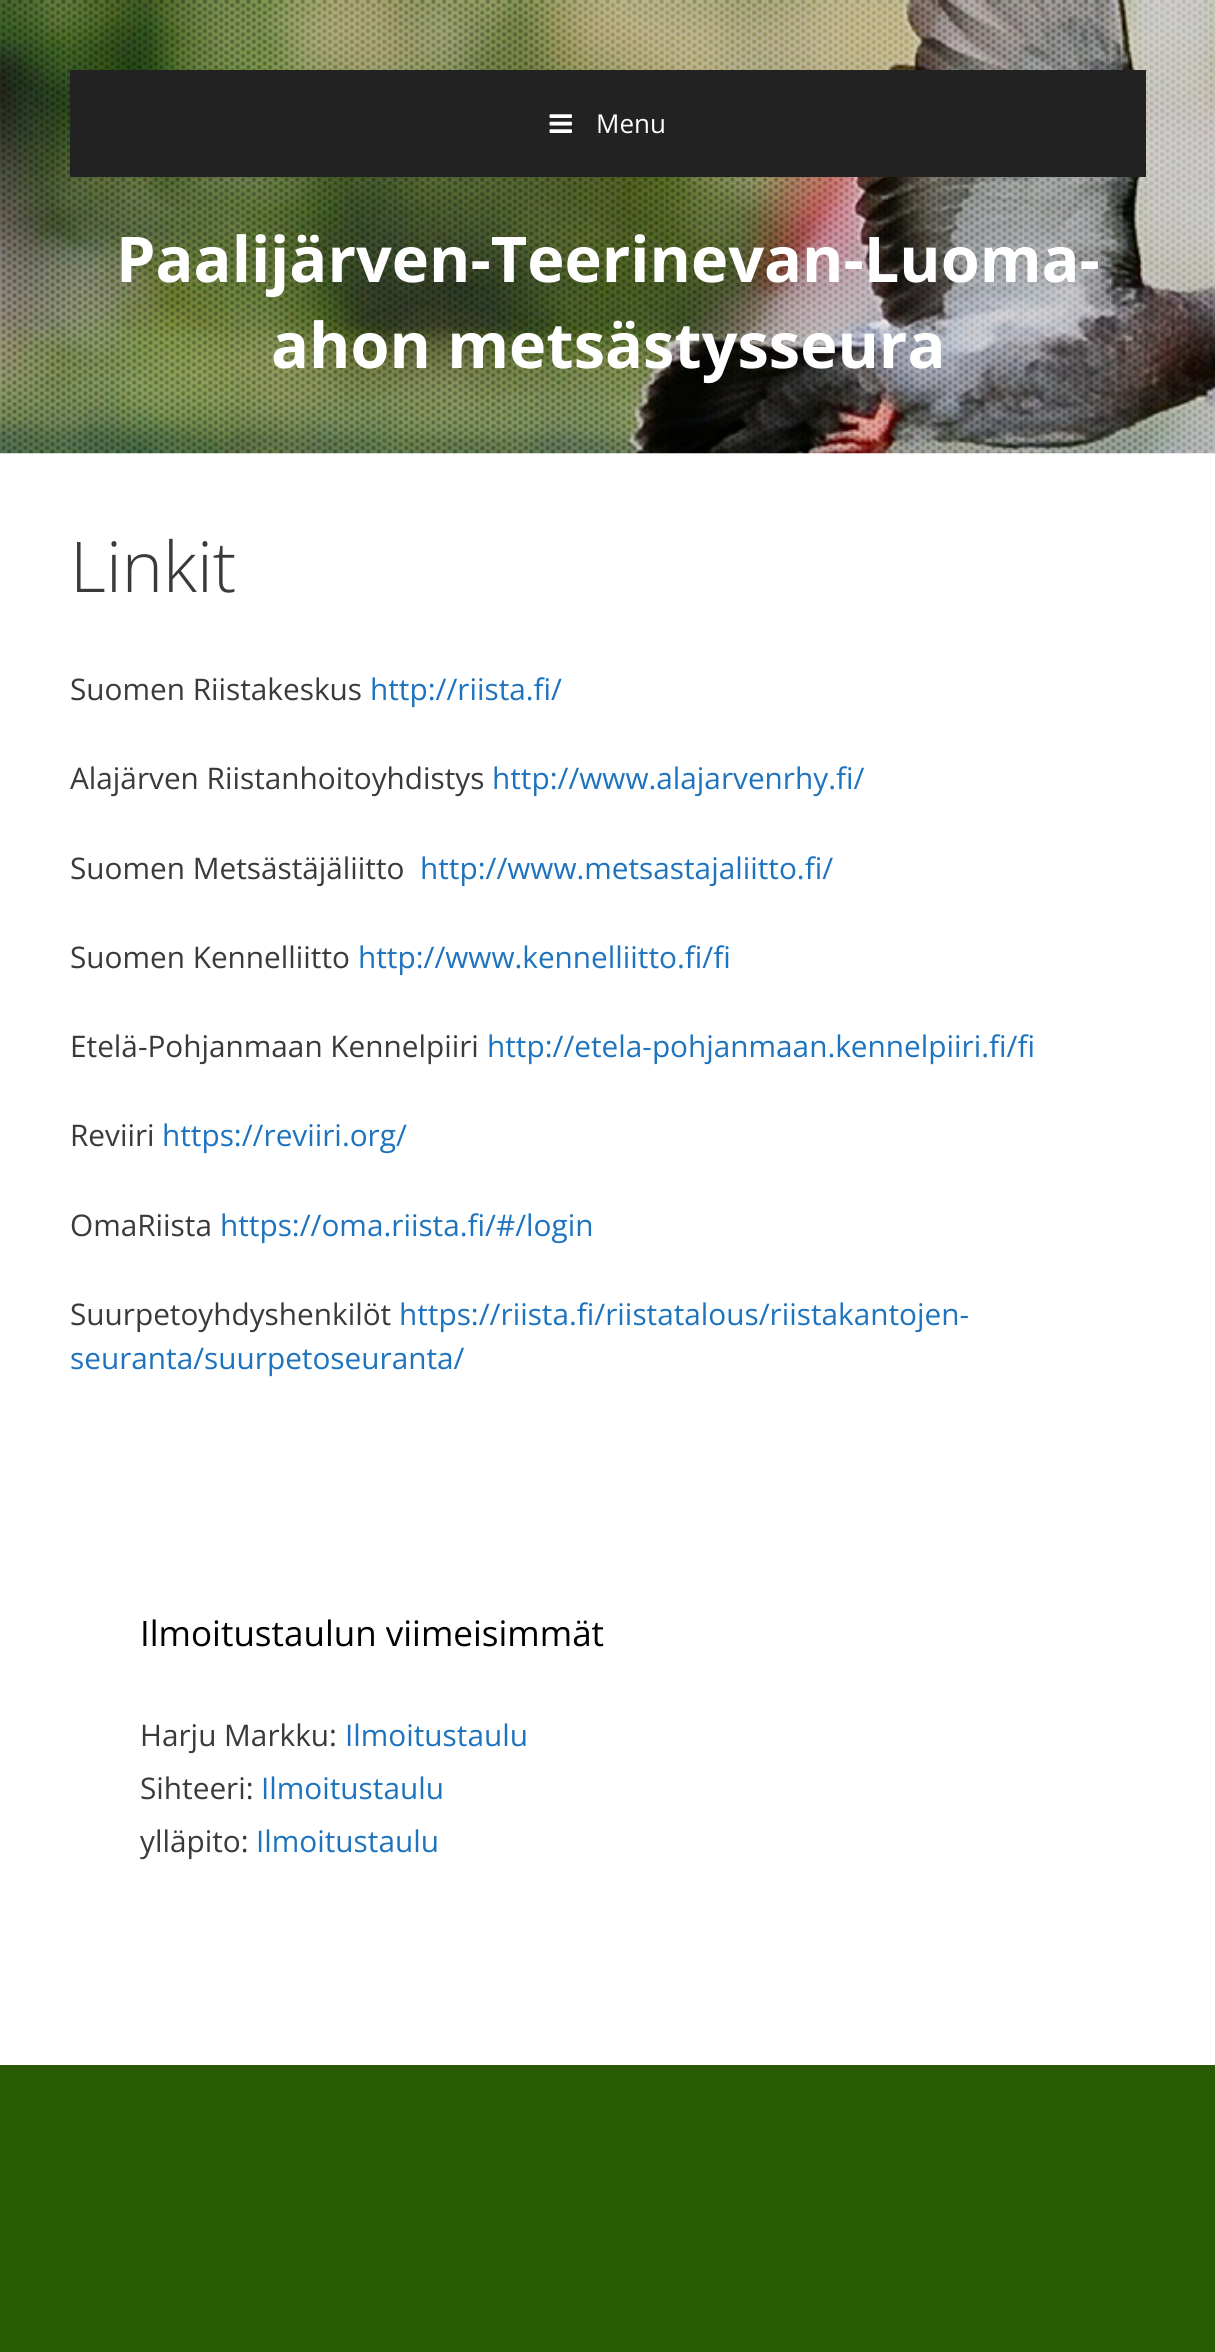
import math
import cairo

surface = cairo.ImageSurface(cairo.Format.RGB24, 1215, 2352)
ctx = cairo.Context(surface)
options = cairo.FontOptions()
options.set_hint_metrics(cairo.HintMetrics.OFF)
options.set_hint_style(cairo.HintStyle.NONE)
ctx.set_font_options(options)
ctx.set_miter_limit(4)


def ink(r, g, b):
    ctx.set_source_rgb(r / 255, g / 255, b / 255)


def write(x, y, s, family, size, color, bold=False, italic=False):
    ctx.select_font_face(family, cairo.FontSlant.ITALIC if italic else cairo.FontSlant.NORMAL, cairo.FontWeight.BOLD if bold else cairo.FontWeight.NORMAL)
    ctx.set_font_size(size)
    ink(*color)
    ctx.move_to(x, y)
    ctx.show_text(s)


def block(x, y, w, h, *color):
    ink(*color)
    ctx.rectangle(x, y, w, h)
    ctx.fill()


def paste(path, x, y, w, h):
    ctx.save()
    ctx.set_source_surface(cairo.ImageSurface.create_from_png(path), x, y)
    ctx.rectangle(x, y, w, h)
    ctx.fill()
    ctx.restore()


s1 = dict(family="Open Sans", size=26, color=(255, 255, 255))
s2 = dict(family="Open Sans", size=63, color=(255, 255, 255), bold=True)
s3 = dict(family="Open Sans Light", size=70, color=(58, 58, 58))
s4 = dict(family="Open Sans", size=29.75, color=(58, 58, 58))
s5 = dict(family="Open Sans", size=29.75, color=(30, 115, 190))
s6 = dict(family="Open Sans", size=35, color=(0, 0, 0))

ink(41, 91, 5)
ctx.paint()
block(0, 453, 1215, 1612, 255, 255, 255)
paste("pic1.png", 0, 0, 1215, 454)
block(70, 70, 1076, 107, 34, 34, 34)
paste("pic2.png", 549, 114, 23, 19)
write(596, 133, "Menu", **s1)
write(116, 282, "Paalijärven-Teerinevan-Luoma-", **s2)
write(271, 368, "ahon metsästysseura", **s2)
write(70, 592, "Linkit", **s3)
write(70, 700, "Suomen Riistakeskus", **s4)
write(370, 700, "http://riista.fi/", **s5)
write(70, 789, "Alajärven Riistanhoitoyhdistys", **s4)
write(492, 789, "http://www.alajarvenrhy.fi/", **s5)
write(70, 879, "Suomen Metsästäjäliitto", **s4)
write(420, 879, "http://www.metsastajaliitto.fi/", **s5)
write(70, 968, "Suomen Kennelliitto", **s4)
write(358, 968, "http://www.kennelliitto.fi/fi", **s5)
write(70, 1057, "Etelä-Pohjanmaan Kennelpiiri", **s4)
write(487, 1057, "http://etela-pohjanmaan.kennelpiiri.fi/fi", **s5)
write(70, 1146, "Reviiri", **s4)
write(162, 1146, "https://reviiri.org/", **s5)
write(70, 1236, "OmaRiista", **s4)
write(220, 1236, "https://oma.riista.fi/#/login", **s5)
write(70, 1325, "Suurpetoyhdyshenkilöt", **s4)
write(399, 1325, "https://riista.fi/riistatalous/riistakantojen-", **s5)
write(70, 1369, "seuranta/suurpetoseuranta/", **s5)
write(140, 1646, "Ilmoitustaulun viimeisimmät", **s6)
write(140, 1746, "Harju Markku:", **s4)
write(345, 1746, "Ilmoitustaulu", **s5)
write(140, 1799, "Sihteeri:", **s4)
write(261, 1799, "Ilmoitustaulu", **s5)
write(140, 1852, "ylläpito:", **s4)
write(256, 1852, "Ilmoitustaulu", **s5)
surface.write_to_png("screenshot.png")
